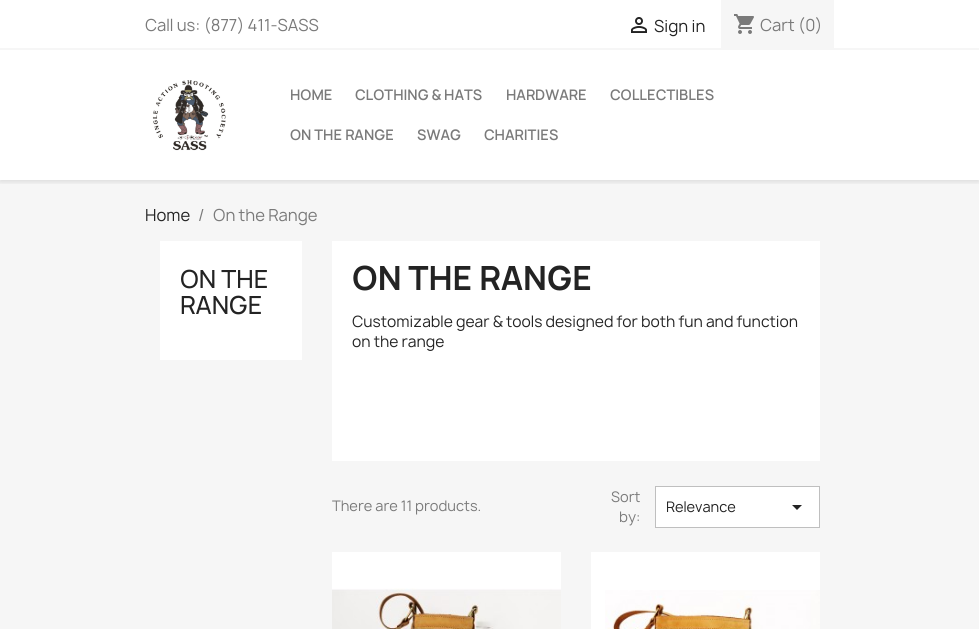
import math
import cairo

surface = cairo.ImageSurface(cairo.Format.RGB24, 979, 629)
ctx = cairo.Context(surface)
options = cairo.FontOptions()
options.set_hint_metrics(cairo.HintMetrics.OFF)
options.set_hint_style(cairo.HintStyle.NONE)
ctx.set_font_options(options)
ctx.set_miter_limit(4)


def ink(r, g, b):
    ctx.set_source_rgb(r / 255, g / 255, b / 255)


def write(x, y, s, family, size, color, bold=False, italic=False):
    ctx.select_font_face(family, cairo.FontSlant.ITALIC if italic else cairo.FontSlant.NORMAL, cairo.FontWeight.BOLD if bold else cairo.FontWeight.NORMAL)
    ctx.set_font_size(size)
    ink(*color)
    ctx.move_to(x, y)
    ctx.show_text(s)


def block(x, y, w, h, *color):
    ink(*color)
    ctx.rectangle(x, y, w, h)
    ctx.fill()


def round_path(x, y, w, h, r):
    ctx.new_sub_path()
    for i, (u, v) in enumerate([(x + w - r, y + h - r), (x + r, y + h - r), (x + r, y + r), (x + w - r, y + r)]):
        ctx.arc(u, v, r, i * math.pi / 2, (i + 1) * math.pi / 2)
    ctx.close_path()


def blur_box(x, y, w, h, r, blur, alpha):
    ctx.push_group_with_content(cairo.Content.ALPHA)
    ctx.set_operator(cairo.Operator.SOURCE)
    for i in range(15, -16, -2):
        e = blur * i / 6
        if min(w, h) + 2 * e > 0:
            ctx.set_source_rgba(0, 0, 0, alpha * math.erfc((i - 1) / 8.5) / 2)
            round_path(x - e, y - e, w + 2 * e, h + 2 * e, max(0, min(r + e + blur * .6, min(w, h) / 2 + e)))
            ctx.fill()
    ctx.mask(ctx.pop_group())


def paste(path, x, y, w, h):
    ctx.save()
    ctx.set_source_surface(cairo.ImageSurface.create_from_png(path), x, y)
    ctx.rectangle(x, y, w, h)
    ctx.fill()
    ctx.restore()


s1 = dict(family="Manrope", size=16, color=(122, 122, 122))
s2 = dict(family="Manrope", size=16, color=(35, 35, 35))
s3 = dict(family="Manrope SemiBold", size=14, color=(122, 122, 122))
s4 = dict(family="Manrope Medium", size=24, color=(35, 35, 35))
s5 = dict(family="Manrope", size=32, color=(35, 35, 35), bold=True)
s6 = dict(family="Manrope", size=15, color=(35, 35, 35))
s7 = dict(family="Manrope", size=14, color=(122, 122, 122))
s8 = dict(family="Manrope", size=14, color=(35, 35, 35))

ink(255, 255, 255)
ctx.paint()
block(0, 180, 979, 449, 246, 246, 246)
ctx.save()
ctx.rectangle(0, 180, 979, 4)
ctx.clip()
ink(0, 0, 0)
blur_box(0, 2, 979, 180, 0, 2.5, 0.11)
ctx.restore()
block(0, 48, 979, 2, 246, 246, 246)
write(145, 31, "Call us: (877) 411-SASS", **s1)
paste("pic1.png", 631, 17, 16, 16)
write(654, 32, "Sign in", **s2)
block(721, 0, 113, 48, 246, 246, 246)
paste("pic2.png", 734, 14, 20, 20)
write(760, 31, "Cart (0)", **s1)
paste("pic3.png", 152, 80, 74, 71)
write(290, 100, "HOME", **s3)
write(355, 100, "CLOTHING & HATS", **s3)
write(506, 100, "HARDWARE", **s3)
write(610, 100, "COLLECTIBLES", **s3)
write(290, 140, "ON THE RANGE", **s3)
write(417, 140, "SWAG", **s3)
write(484, 140, "CHARITIES", **s3)
write(145, 221, "Home", **s2)
write(198, 221, "/", **s1)
write(213, 221, "On the Range", **s1)
block(160, 241, 142, 119, 255, 255, 255)
write(180, 288, "ON THE", **s4)
write(180, 314, "RANGE", **s4)
block(332, 241, 488, 220, 255, 255, 255)
write(352, 290, "ON THE RANGE", **s5)
write(352, 327, "Customizable gear & tools designed for both fun and function", **s6)
write(352, 347, "on the range", **s6)
write(332, 511, "There are 11 products.", **s7)
write(611, 502, "Sort", **s7)
write(619, 522, "by:", **s7)
ink(255, 255, 255)
ctx.rectangle(655.5, 486.5, 164, 41)
ctx.fill_preserve()
ink(191, 191, 191)
ctx.set_line_width(1)
ctx.stroke()
write(666, 512, "Relevance", **s8)
ctx.new_path()
ctx.move_to(792, 505)
ctx.line_to(802, 505)
ctx.line_to(797, 510)
ctx.close_path()
ctx.fill()
block(332, 552, 229, 36, 255, 255, 255)
paste("pic4.png", 332, 588, 229, 41)
block(591, 552, 229, 77, 255, 255, 255)
paste("pic5.png", 605, 590, 215, 39)
surface.write_to_png("screenshot.png")
